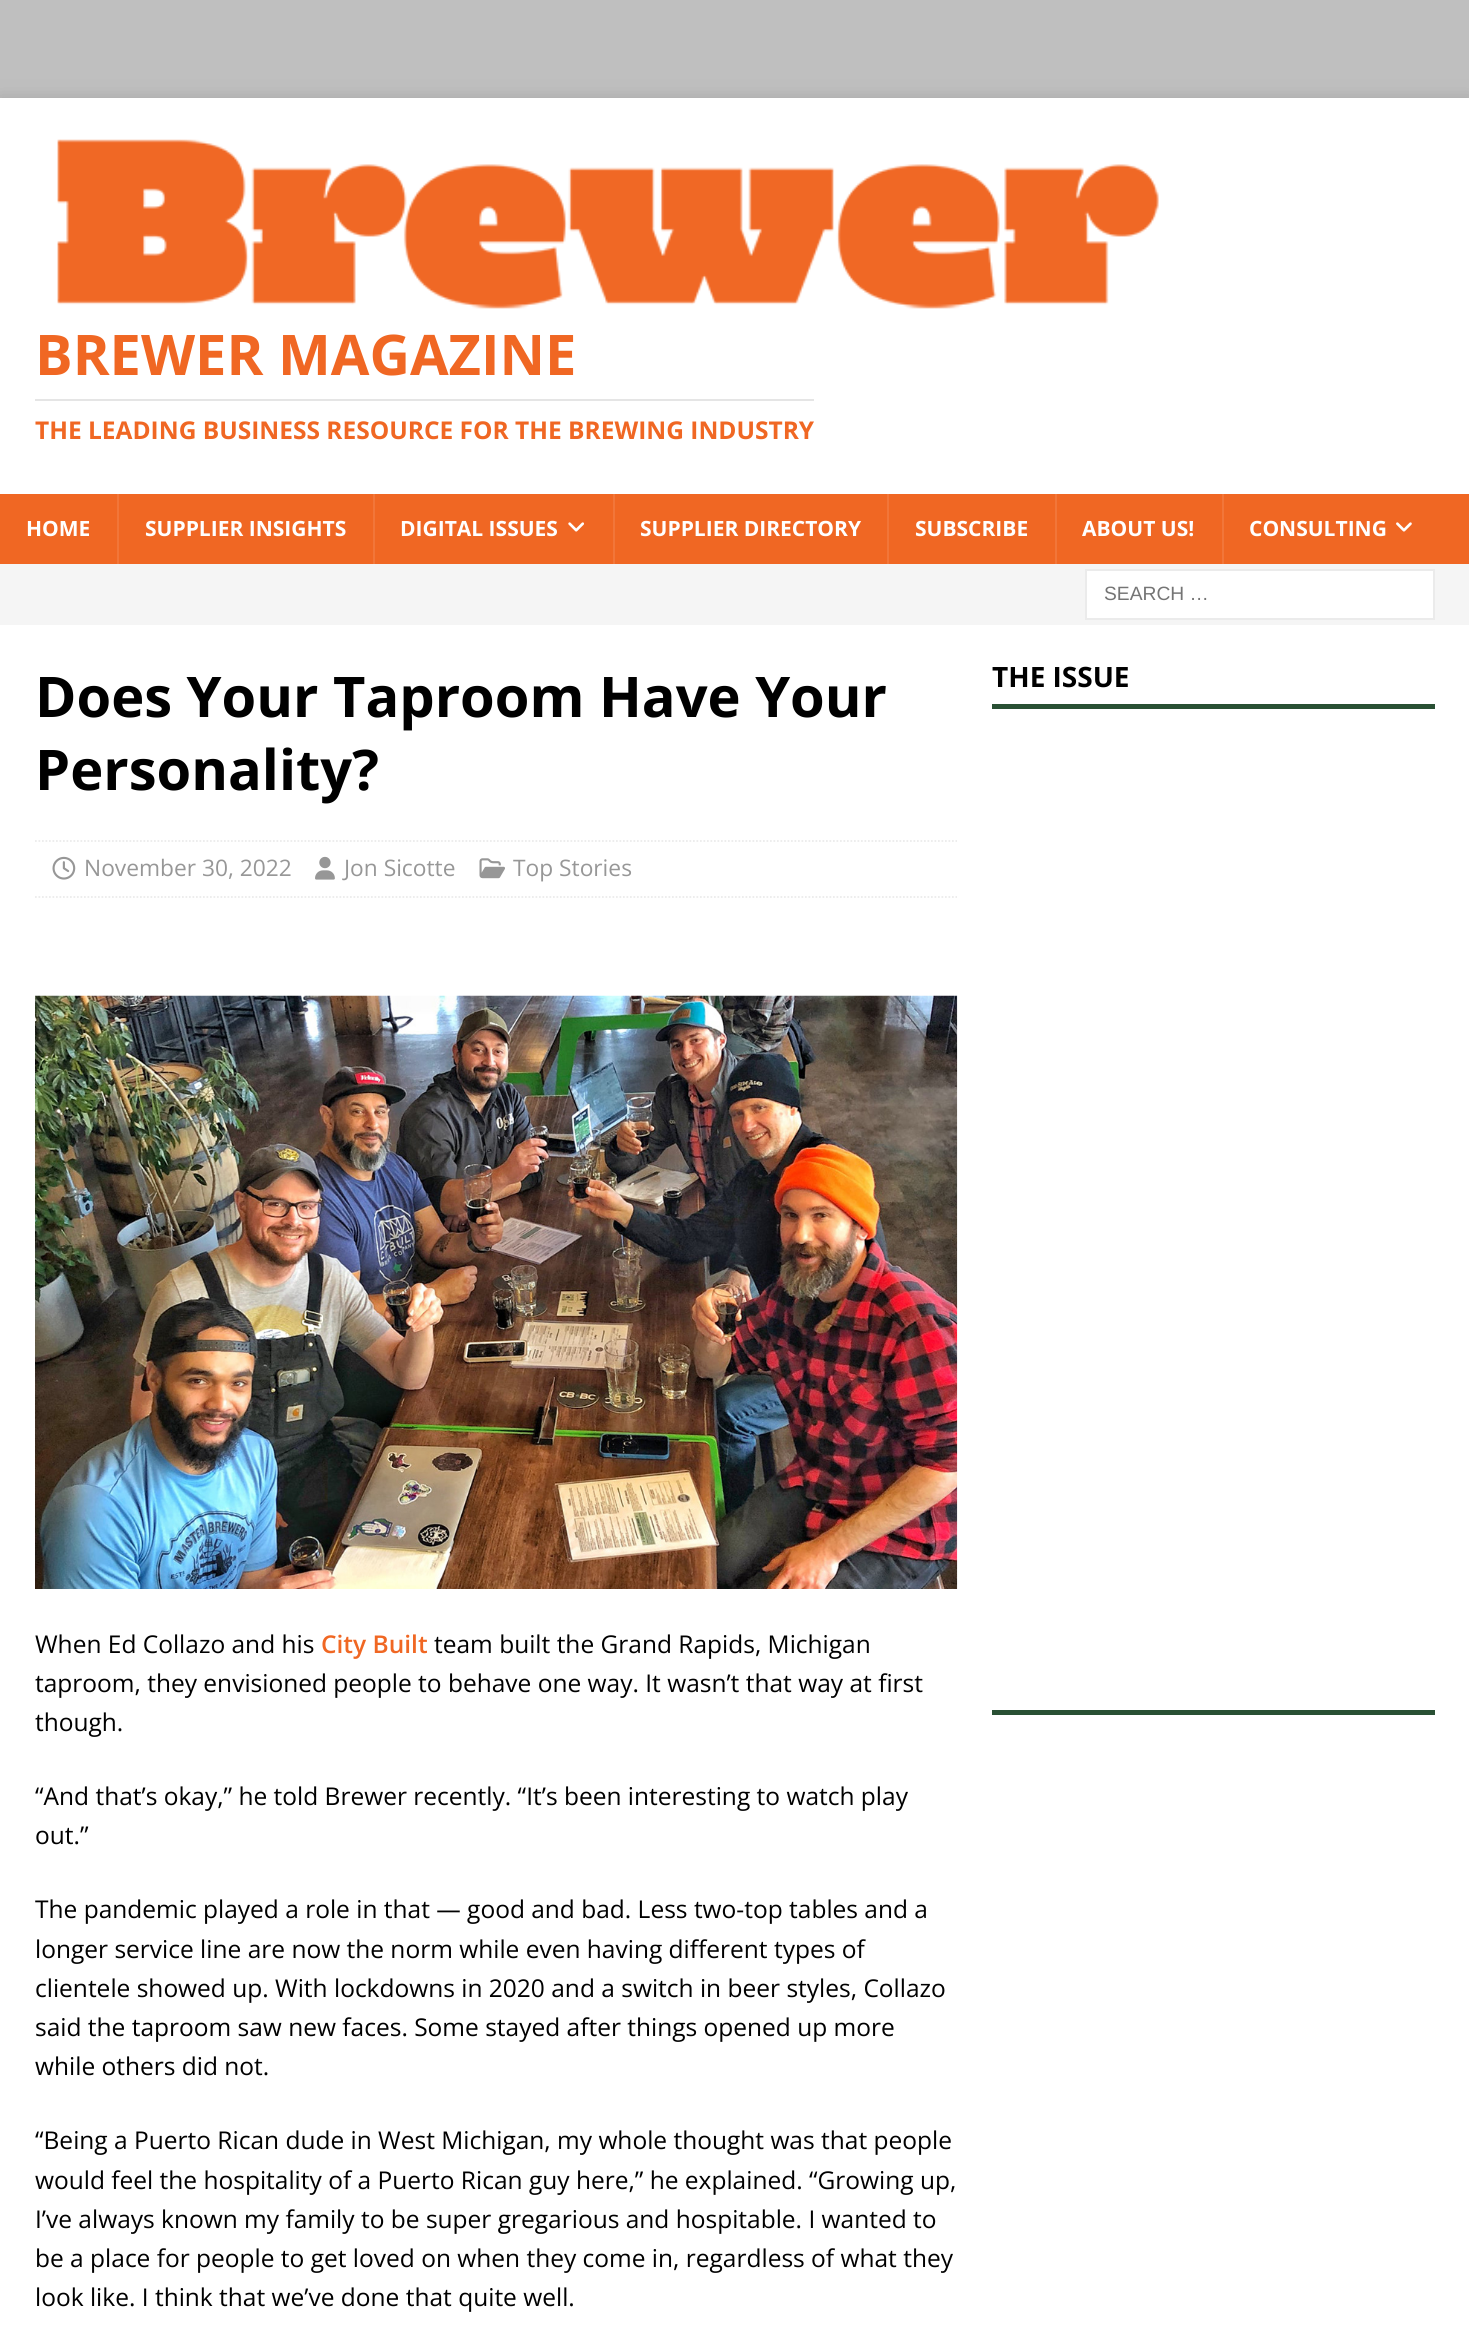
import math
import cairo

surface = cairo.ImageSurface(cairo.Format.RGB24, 1469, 2325)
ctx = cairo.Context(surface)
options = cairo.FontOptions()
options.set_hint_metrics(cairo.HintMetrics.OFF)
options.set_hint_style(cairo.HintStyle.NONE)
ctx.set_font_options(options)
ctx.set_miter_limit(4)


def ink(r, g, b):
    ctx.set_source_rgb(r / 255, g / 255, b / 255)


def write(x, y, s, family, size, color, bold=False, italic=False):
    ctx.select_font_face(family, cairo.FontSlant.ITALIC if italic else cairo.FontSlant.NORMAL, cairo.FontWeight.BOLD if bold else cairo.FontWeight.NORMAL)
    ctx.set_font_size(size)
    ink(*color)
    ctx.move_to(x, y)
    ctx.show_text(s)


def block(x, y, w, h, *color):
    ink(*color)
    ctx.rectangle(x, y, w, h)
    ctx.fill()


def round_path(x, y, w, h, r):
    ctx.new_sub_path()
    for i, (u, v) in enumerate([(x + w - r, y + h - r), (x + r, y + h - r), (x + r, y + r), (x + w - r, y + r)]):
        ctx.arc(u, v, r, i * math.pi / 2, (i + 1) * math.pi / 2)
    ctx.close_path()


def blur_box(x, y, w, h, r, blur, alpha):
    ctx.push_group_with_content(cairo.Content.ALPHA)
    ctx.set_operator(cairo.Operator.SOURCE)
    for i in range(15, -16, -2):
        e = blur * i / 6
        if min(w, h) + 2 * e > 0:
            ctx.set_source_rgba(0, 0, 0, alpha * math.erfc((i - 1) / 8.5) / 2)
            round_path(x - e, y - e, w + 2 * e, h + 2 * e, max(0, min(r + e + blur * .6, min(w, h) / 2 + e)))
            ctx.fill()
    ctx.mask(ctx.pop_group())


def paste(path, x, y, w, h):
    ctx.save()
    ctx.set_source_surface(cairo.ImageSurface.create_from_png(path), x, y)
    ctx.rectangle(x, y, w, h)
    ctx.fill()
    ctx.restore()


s1 = dict(family="Open Sans", size=56, color=(240, 103, 35), bold=True)
s2 = dict(family="Open Sans", size=24.5, color=(240, 103, 35), bold=True)
s3 = dict(family="Open Sans", size=21, color=(255, 255, 255), bold=True)
s4 = dict(family="Liberation Sans", size=19.25, color=(117, 117, 117))
s5 = dict(family="Open Sans", size=56, color=(0, 0, 0), bold=True)
s6 = dict(family="Open Sans", size=22.75, color=(151, 151, 151))
s7 = dict(family="Open Sans", size=24.5, color=(0, 0, 0))
s8 = dict(family="Open Sans SemiBold", size=24.5, color=(240, 103, 35))
s9 = dict(family="Open Sans", size=28, color=(0, 0, 0), bold=True)

ink(191, 191, 191)
ctx.paint()
ink(50, 50, 50)
blur_box(0, 98, 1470, 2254, 0, 9, 0.17)
block(0, 98, 1469, 396, 255, 255, 255)
paste("pic1.png", 57, 139, 1102, 170)
write(35, 375, "BREWER MAGAZINE", **s1)
block(35, 399, 779, 2, 229, 229, 229)
write(35, 439, "THE LEADING BUSINESS RESOURCE FOR THE BREWING INDUSTRY", **s2)
block(0, 494, 1469, 70, 240, 103, 35)
write(26, 536, "HOME", **s3)
block(117, 494, 2, 70, 242, 118, 57)
write(145, 536, "SUPPLIER INSIGHTS", **s3)
block(373, 494, 2, 70, 242, 118, 57)
write(400, 536, "DIGITAL ISSUES", **s3)
paste("pic2.png", 568, 522, 16, 10)
block(613, 494, 2, 70, 242, 118, 57)
write(640, 536, "SUPPLIER DIRECTORY", **s3)
block(887, 494, 2, 70, 242, 118, 57)
write(915, 536, "SUBSCRIBE", **s3)
block(1055, 494, 2, 70, 242, 118, 57)
write(1082, 536, "ABOUT US!", **s3)
block(1222, 494, 2, 70, 242, 118, 57)
write(1249, 536, "CONSULTING", **s3)
paste("pic3.png", 1396, 522, 16, 10)
block(0, 564, 1469, 61, 245, 245, 245)
ink(255, 255, 255)
ctx.rectangle(1086, 570, 348, 49)
ctx.fill_preserve()
ink(235, 235, 235)
ctx.stroke()
write(1104, 600, "SEARCH …", **s4)
block(0, 625, 1469, 1700, 255, 255, 255)
write(35, 717, "Does Your Taproom Have Your", **s5)
write(35, 790, "Personality?", **s5)
ctx.new_path()
ctx.move_to(35, 841)
ctx.line_to(957, 841)
ink(235, 235, 235)
ctx.set_line_width(1.8)
ctx.set_dash([1.75, 1.75])
ctx.stroke()
ctx.new_path()
ctx.move_to(35, 897)
ctx.line_to(957, 897)
ctx.stroke()
paste("pic4.png", 52, 856, 24, 24)
write(84, 876, "November 30, 2022", **s6)
paste("pic5.png", 315, 856, 20, 24)
write(344, 876, "Jon Sicotte", **s6)
paste("pic6.png", 479, 858, 26, 21)
write(513, 876, "Top Stories", **s6)
paste("pic7.png", 35, 995, 923, 594)
write(35, 1653, "When Ed Collazo and his", **s7)
write(321, 1653, "City Built", **s8)
write(434, 1653, "team built the Grand Rapids, Michigan", **s7)
write(35, 1692, "taproom, they envisioned people to behave one way. It wasn’t that way at first", **s7)
write(35, 1731, "though.", **s7)
write(35, 1805, "“And that’s okay,” he told Brewer recently. “It’s been interesting to watch play", **s7)
write(35, 1844, "out.”", **s7)
write(35, 1918, "The pandemic played a role in that — good and bad. Less two-top tables and a", **s7)
write(35, 1958, "longer service line are now the norm while even having different types of", **s7)
write(35, 1997, "clientele showed up. With lockdowns in 2020 and a switch in beer styles, Collazo", **s7)
write(35, 2036, "said the taproom saw new faces. Some stayed after things opened up more", **s7)
write(35, 2075, "while others did not.", **s7)
write(35, 2149, "“Being a Puerto Rican dude in West Michigan, my whole thought was that people", **s7)
write(35, 2189, "would feel the hospitality of a Puerto Rican guy here,” he explained. “Growing up,", **s7)
write(35, 2228, "I’ve always known my family to be super gregarious and hospitable. I wanted to", **s7)
write(35, 2267, "be a place for people to get loved on when they come in, regardless of what they", **s7)
write(35, 2306, "look like. I think that we’ve done that quite well.", **s7)
block(992, 704, 443, 5, 41, 80, 52)
write(992, 687, "THE ISSUE", **s9)
block(992, 1710, 443, 5, 41, 80, 52)
surface.write_to_png("screenshot.png")
